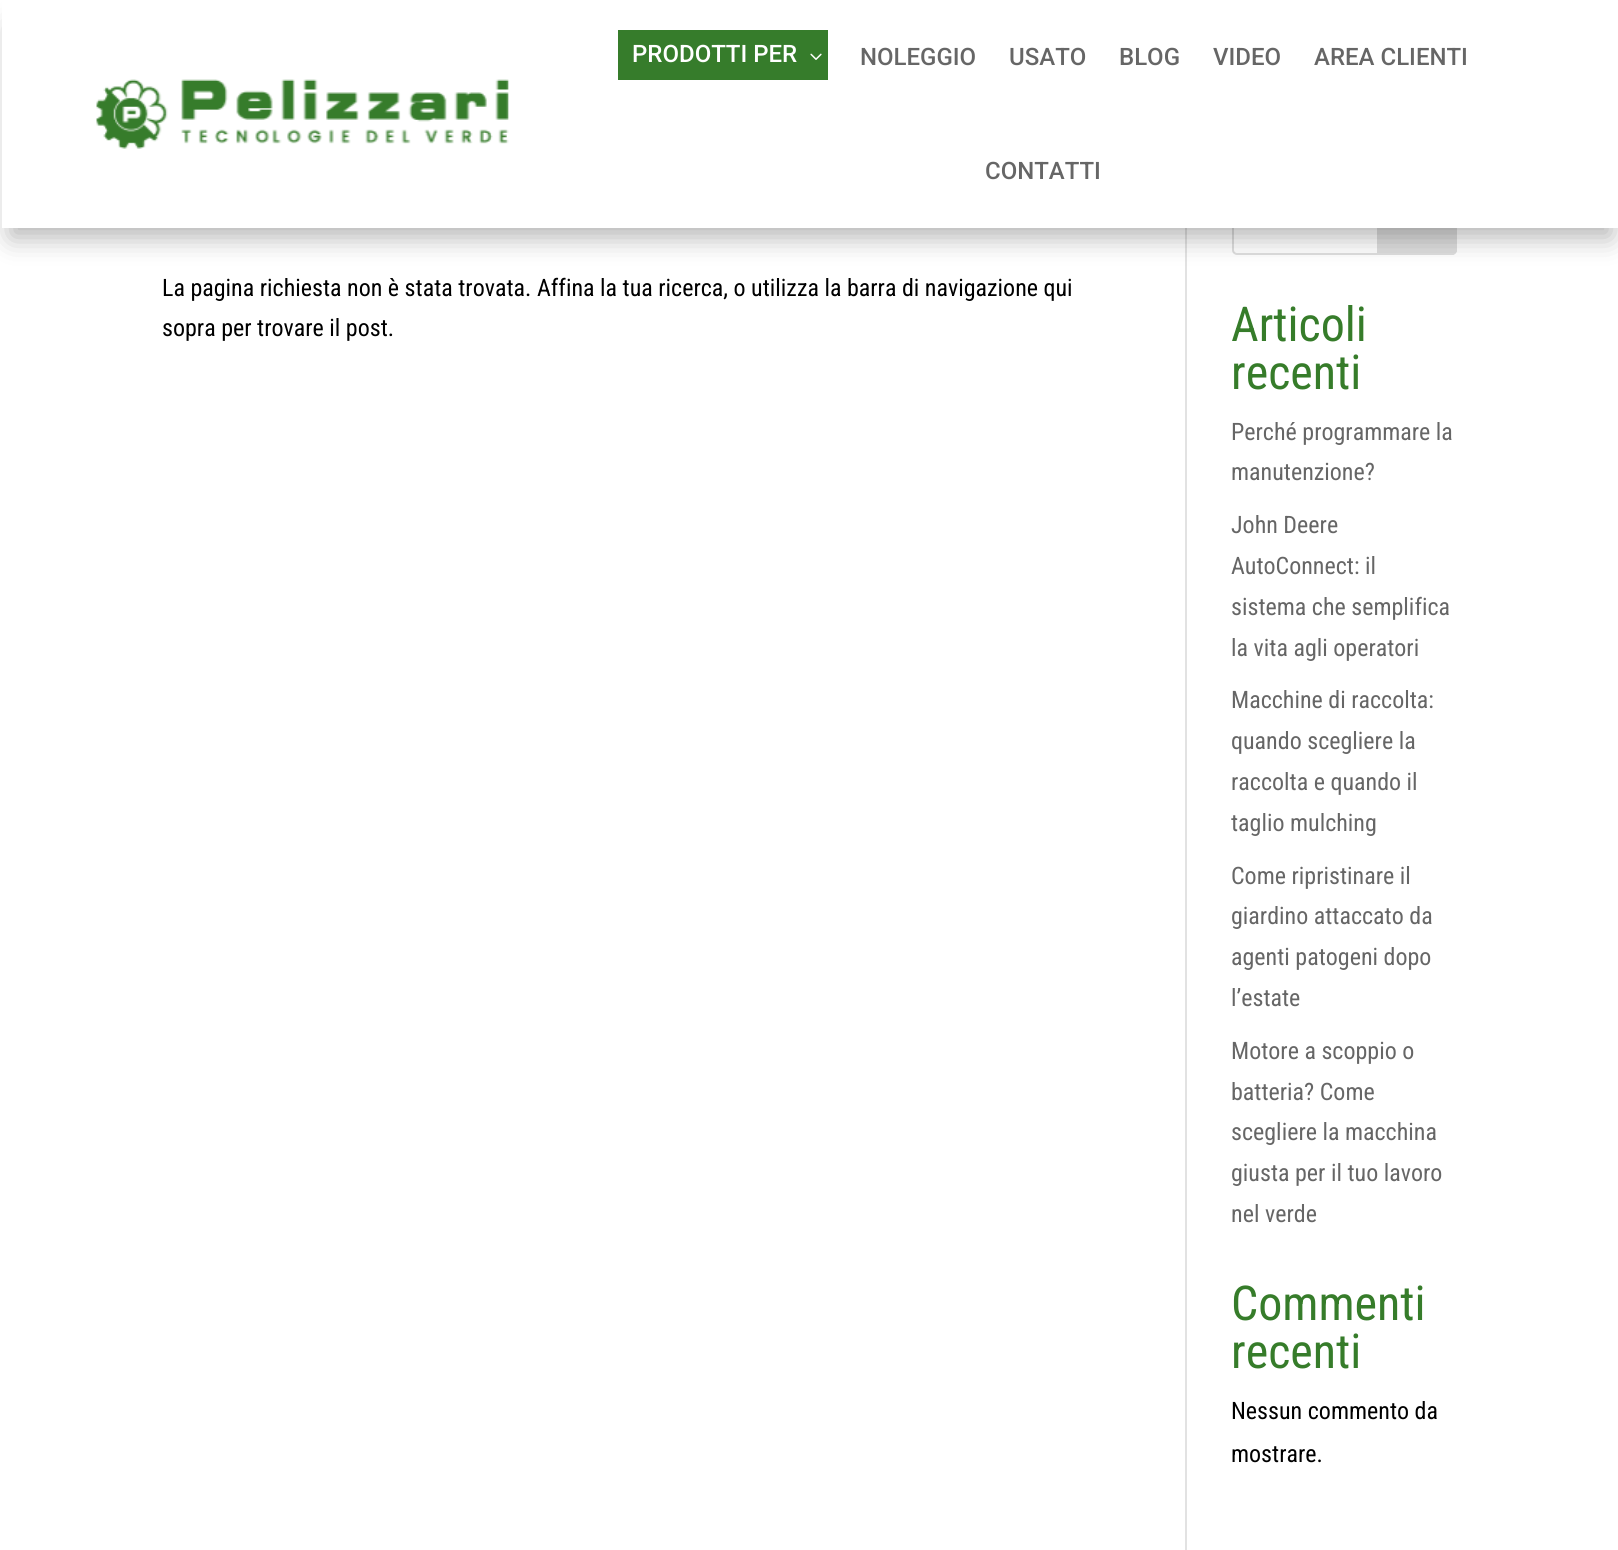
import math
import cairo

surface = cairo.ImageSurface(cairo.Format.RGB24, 1618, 1550)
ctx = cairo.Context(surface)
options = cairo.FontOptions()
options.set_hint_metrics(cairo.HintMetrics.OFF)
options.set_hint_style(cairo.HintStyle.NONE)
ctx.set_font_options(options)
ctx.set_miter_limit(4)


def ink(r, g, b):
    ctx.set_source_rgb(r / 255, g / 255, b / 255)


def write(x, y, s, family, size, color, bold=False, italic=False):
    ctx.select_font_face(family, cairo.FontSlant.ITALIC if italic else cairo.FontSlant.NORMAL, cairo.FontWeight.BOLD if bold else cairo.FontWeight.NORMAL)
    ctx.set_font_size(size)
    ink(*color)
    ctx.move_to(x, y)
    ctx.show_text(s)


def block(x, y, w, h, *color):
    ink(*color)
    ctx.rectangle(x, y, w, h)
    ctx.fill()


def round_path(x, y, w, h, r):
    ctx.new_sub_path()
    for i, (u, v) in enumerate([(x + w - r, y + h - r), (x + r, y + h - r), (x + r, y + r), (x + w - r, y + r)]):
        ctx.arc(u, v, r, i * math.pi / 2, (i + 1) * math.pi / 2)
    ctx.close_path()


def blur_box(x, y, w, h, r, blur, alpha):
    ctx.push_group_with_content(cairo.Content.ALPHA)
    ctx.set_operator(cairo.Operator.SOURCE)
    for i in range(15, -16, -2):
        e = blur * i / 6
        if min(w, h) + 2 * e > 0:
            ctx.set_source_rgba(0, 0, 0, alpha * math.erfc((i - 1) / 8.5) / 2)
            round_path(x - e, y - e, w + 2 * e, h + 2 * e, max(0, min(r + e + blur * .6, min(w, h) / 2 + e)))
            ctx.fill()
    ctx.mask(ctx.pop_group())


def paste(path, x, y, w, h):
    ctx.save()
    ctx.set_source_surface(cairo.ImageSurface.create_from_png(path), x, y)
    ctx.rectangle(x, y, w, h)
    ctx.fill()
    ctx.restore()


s1 = dict(family="Roboto Medium", size=24, color=(255, 255, 255))
s2 = dict(family="Roboto Medium", size=24, color=(102, 102, 102))
s3 = dict(family="Roboto Condensed", size=24, color=(0, 0, 0))
s4 = dict(family="Roboto Condensed", size=48, color=(54, 124, 42))
s5 = dict(family="Roboto Condensed", size=24, color=(102, 102, 102))

ink(255, 255, 255)
ctx.paint()
block(1185, 228, 2, 1322, 226, 226, 226)
round_path(1233, 196, 223, 58, 4)
ink(221, 221, 221)
ctx.stroke()
ctx.new_path()
ctx.move_to(1378, 196)
ctx.line_to(1452, 196)
ctx.curve_to(1454, 196, 1456, 198, 1456, 200)
ctx.line_to(1456, 250)
ctx.curve_to(1456, 252, 1454, 254, 1452, 254)
ctx.line_to(1378, 254)
ctx.close_path()
ctx.fill_preserve()
ctx.stroke()
ctx.save()
ctx.set_fill_rule(cairo.FillRule.EVEN_ODD)
ctx.new_path()
ctx.move_to(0, 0)
ctx.line_to(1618, 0)
ctx.line_to(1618, 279)
ctx.line_to(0, 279)
ctx.close_path()
ctx.move_to(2, 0)
ctx.line_to(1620, 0)
ctx.line_to(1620, 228)
ctx.line_to(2, 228)
ctx.close_path()
ctx.clip()
ink(0, 0, 0)
blur_box(11, 27, 1600, 210, 0, 13.5, 0.3)
ctx.restore()
block(1232, 195, 225, 33, 255, 255, 255)
paste("pic1.png", 96, 79, 413, 70)
block(618, 30, 210, 50, 54, 124, 43)
write(632, 62, "PRODOTTI PER", **s1)
paste("pic2.png", 810, 53, 12, 7)
write(860, 65, "NOLEGGIO", **s2)
write(1009, 65, "USATO", **s2)
write(1119, 65, "BLOG", **s2)
write(1213, 65, "VIDEO", **s2)
write(1314, 65, "AREA CLIENTI", **s2)
write(985, 179, "CONTATTI", **s2)
write(162, 296, "La pagina richiesta non è stata trovata. Affina la tua ricerca, o utilizza la barra di navigazione qui", **s3)
write(162, 336, "sopra per trovare il post.", **s3)
write(1231, 341, "Articoli", **s4)
write(1231, 389, "recenti", **s4)
write(1231, 440, "Perché programmare la", **s5)
write(1231, 480, "manutenzione?", **s5)
write(1231, 533, "John Deere", **s5)
write(1231, 574, "AutoConnect: il", **s5)
write(1231, 615, "sistema che semplifica", **s5)
write(1231, 656, "la vita agli operatori", **s5)
write(1231, 708, "Macchine di raccolta:", **s5)
write(1231, 749, "quando scegliere la", **s5)
write(1231, 790, "raccolta e quando il", **s5)
write(1231, 831, "taglio mulching", **s5)
write(1231, 884, "Come ripristinare il", **s5)
write(1231, 924, "giardino attaccato da", **s5)
write(1231, 965, "agenti patogeni dopo", **s5)
write(1231, 1006, "l’estate", **s5)
write(1231, 1059, "Motore a scoppio o", **s5)
write(1231, 1100, "batteria? Come", **s5)
write(1231, 1140, "scegliere la macchina", **s5)
write(1231, 1181, "giusta per il tuo lavoro", **s5)
write(1231, 1222, "nel verde", **s5)
write(1231, 1320, "Commenti", **s4)
write(1231, 1368, "recenti", **s4)
write(1231, 1419, "Nessun commento da", **s3)
write(1231, 1462, "mostrare.", **s3)
surface.write_to_png("screenshot.png")
